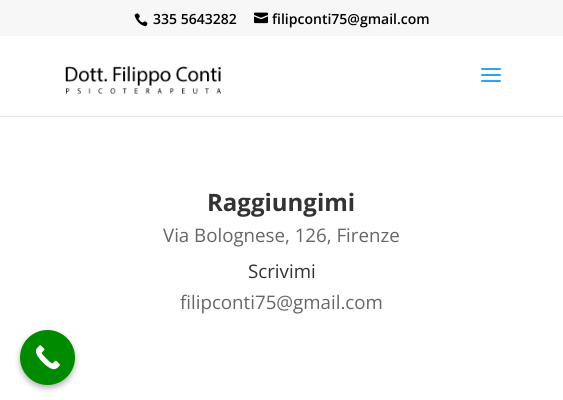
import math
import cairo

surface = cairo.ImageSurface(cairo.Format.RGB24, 563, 400)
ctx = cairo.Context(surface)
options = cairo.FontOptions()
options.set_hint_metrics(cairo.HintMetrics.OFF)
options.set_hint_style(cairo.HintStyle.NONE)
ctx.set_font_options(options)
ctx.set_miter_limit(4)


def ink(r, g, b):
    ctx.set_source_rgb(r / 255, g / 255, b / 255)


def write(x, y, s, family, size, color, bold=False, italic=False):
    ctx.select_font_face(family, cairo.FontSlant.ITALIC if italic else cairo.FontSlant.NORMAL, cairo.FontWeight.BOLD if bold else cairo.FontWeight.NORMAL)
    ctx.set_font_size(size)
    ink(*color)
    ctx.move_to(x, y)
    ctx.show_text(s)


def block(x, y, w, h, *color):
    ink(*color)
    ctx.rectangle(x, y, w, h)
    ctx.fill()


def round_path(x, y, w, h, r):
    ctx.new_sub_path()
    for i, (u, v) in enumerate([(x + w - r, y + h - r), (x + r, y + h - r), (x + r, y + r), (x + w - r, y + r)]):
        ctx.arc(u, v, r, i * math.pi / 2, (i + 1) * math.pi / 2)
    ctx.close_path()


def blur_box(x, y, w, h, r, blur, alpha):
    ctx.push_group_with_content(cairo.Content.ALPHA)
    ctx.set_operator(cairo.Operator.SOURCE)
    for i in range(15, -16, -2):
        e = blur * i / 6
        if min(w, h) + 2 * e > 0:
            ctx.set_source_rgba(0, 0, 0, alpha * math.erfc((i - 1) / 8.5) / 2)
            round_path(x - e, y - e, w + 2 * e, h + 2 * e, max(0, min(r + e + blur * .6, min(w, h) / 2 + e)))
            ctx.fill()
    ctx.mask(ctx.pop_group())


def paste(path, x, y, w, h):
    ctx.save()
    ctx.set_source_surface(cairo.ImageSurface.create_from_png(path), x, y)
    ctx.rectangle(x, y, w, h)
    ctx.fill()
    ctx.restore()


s1 = dict(family="Open Sans SemiBold", size=14, color=(0, 0, 0))
s2 = dict(family="Open Sans", size=24, color=(51, 51, 51), bold=True)
s3 = dict(family="Open Sans", size=18.7, color=(102, 102, 102))
s4 = dict(family="Open Sans", size=18.7, color=(51, 51, 51))

ink(255, 255, 255)
ctx.paint()
block(0, 0, 563, 36, 247, 247, 247)
paste("pic1.png", 134, 13, 14, 14)
write(153, 24, "335 5643282", **s1)
paste("pic2.png", 254, 12, 14, 12)
write(272, 24, "filipconti75@gmail.com", **s1)
block(0, 116, 563, 1, 230, 230, 230)
paste("pic3.png", 65, 66, 156, 28)
paste("pic4.png", 481, 68, 20, 14)
write(207, 211, "Raggiungimi", **s2)
write(163, 242, "Via Bolognese, 126, Firenze", **s3)
write(248, 278, "Scrivimi", **s4)
write(180, 309, "filipconti75@gmail.com", **s3)
ink(0, 0, 0)
blur_box(20, 333, 55, 55, 27.5, 3, 0.3)
ink(0, 138, 0)
ctx.arc(47.5, 357.5, 27.5, 0, 2 * math.pi)
ctx.fill()
paste("pic5.png", 35, 345, 25, 25)
surface.write_to_png("screenshot.png")
